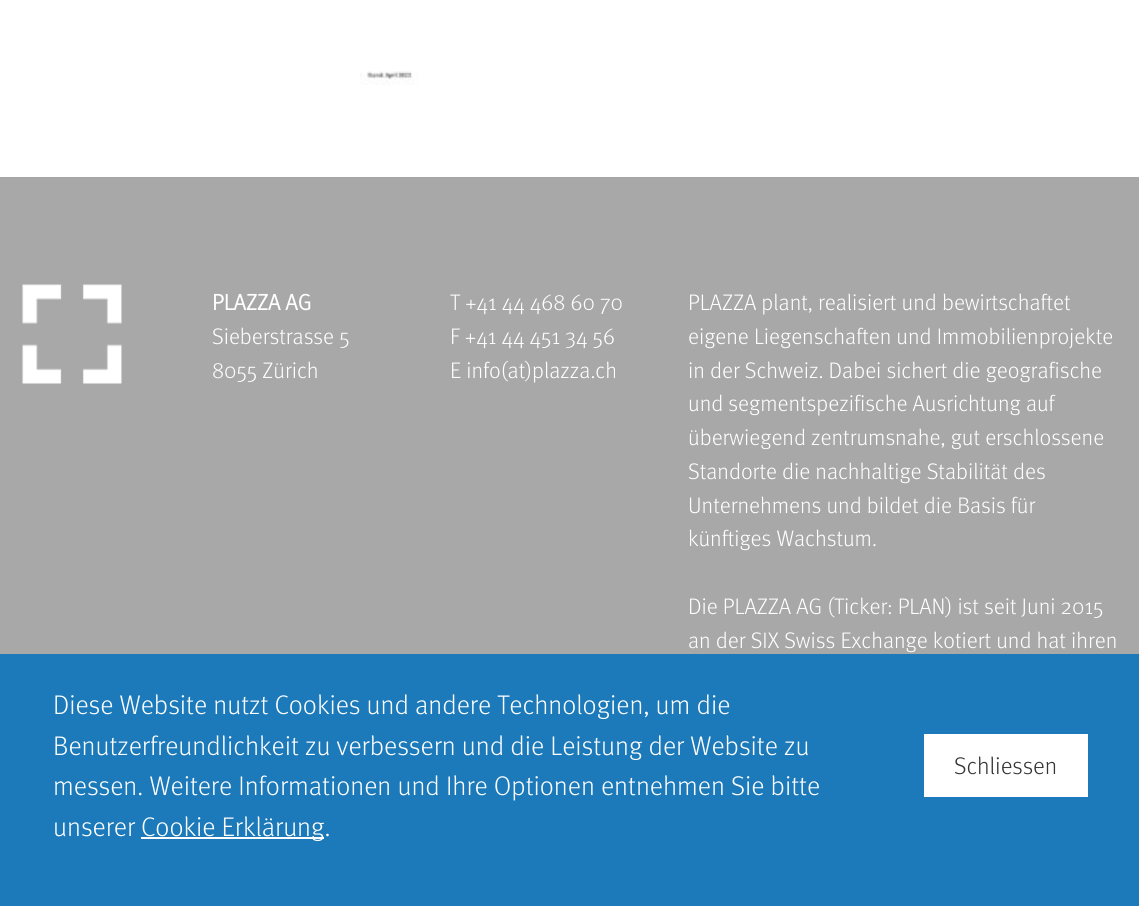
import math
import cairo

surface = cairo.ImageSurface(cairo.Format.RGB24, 1139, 906)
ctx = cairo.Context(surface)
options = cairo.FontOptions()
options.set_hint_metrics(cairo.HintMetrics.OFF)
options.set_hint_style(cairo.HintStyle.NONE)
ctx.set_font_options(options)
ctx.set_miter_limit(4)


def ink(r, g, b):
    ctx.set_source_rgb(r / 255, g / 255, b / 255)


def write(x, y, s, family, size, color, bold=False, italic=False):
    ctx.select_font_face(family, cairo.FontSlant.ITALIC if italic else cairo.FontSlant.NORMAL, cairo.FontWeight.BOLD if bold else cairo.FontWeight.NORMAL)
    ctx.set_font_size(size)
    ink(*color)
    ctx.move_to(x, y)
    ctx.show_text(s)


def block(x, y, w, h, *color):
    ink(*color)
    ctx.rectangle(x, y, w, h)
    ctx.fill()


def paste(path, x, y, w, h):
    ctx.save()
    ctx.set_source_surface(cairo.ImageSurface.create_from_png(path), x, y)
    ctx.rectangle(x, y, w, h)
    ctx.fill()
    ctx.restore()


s1 = dict(family="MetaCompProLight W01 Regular", size=22.5, color=(255, 255, 255), bold=True)
s2 = dict(family="MetaCompProLight W01 Regular Light", size=22.5, color=(255, 255, 255))
s3 = dict(family="MetaCompProLight W01 Regular Light", size=27, color=(255, 255, 255))
s4 = dict(family="MetaCompProLight W01 Regular Light", size=24, color=(51, 51, 51))

ink(255, 255, 255)
ctx.paint()
paste("pic1.png", 360, 71, 58, 14)
block(0, 177, 1139, 477, 168, 168, 168)
paste("pic2.png", 22, 284, 100, 100)
write(212, 310, "PLAZZA AG", **s1)
write(212, 344, "Sieberstrasse 5", **s2)
write(212, 378, "8055 Zürich", **s2)
write(450, 310, "T +41 44 468 60 70", **s2)
write(450, 344, "F +41 44 451 34 56", **s2)
write(450, 378, "E info(at)plazza.ch", **s2)
write(688, 310, "PLAZZA plant, realisiert und bewirtschaftet", **s2)
write(688, 344, "eigene Liegenschaften und Immobilienprojekte", **s2)
write(688, 378, "in der Schweiz. Dabei sichert die geografische", **s2)
write(688, 411, "und segmentspezifische Ausrichtung auf", **s2)
write(688, 445, "überwiegend zentrumsnahe, gut erschlossene", **s2)
write(688, 479, "Standorte die nachhaltige Stabilität des", **s2)
write(688, 513, "Unternehmens und bildet die Basis für", **s2)
write(688, 546, "künftiges Wachstum.", **s2)
write(688, 614, "Die PLAZZA AG (Ticker: PLAN) ist seit Juni 2015", **s2)
write(688, 648, "an der SIX Swiss Exchange kotiert und hat ihren", **s2)
block(0, 654, 1139, 252, 28, 122, 186)
write(53, 714, "Diese Website nutzt Cookies und andere Technologien, um die", **s3)
write(53, 755, "Benutzerfreundlichkeit zu verbessern und die Leistung der Website zu", **s3)
write(53, 795, "messen. Weitere Informationen und Ihre Optionen entnehmen Sie bitte", **s3)
write(53, 836, "unserer", **s3)
block(141, 837, 183, 2, 255, 255, 255)
write(141, 836, "Cookie Erklärung.", **s3)
block(924, 734, 164, 63, 255, 255, 255)
write(954, 774, "Schliessen", **s4)
surface.write_to_png("screenshot.png")
